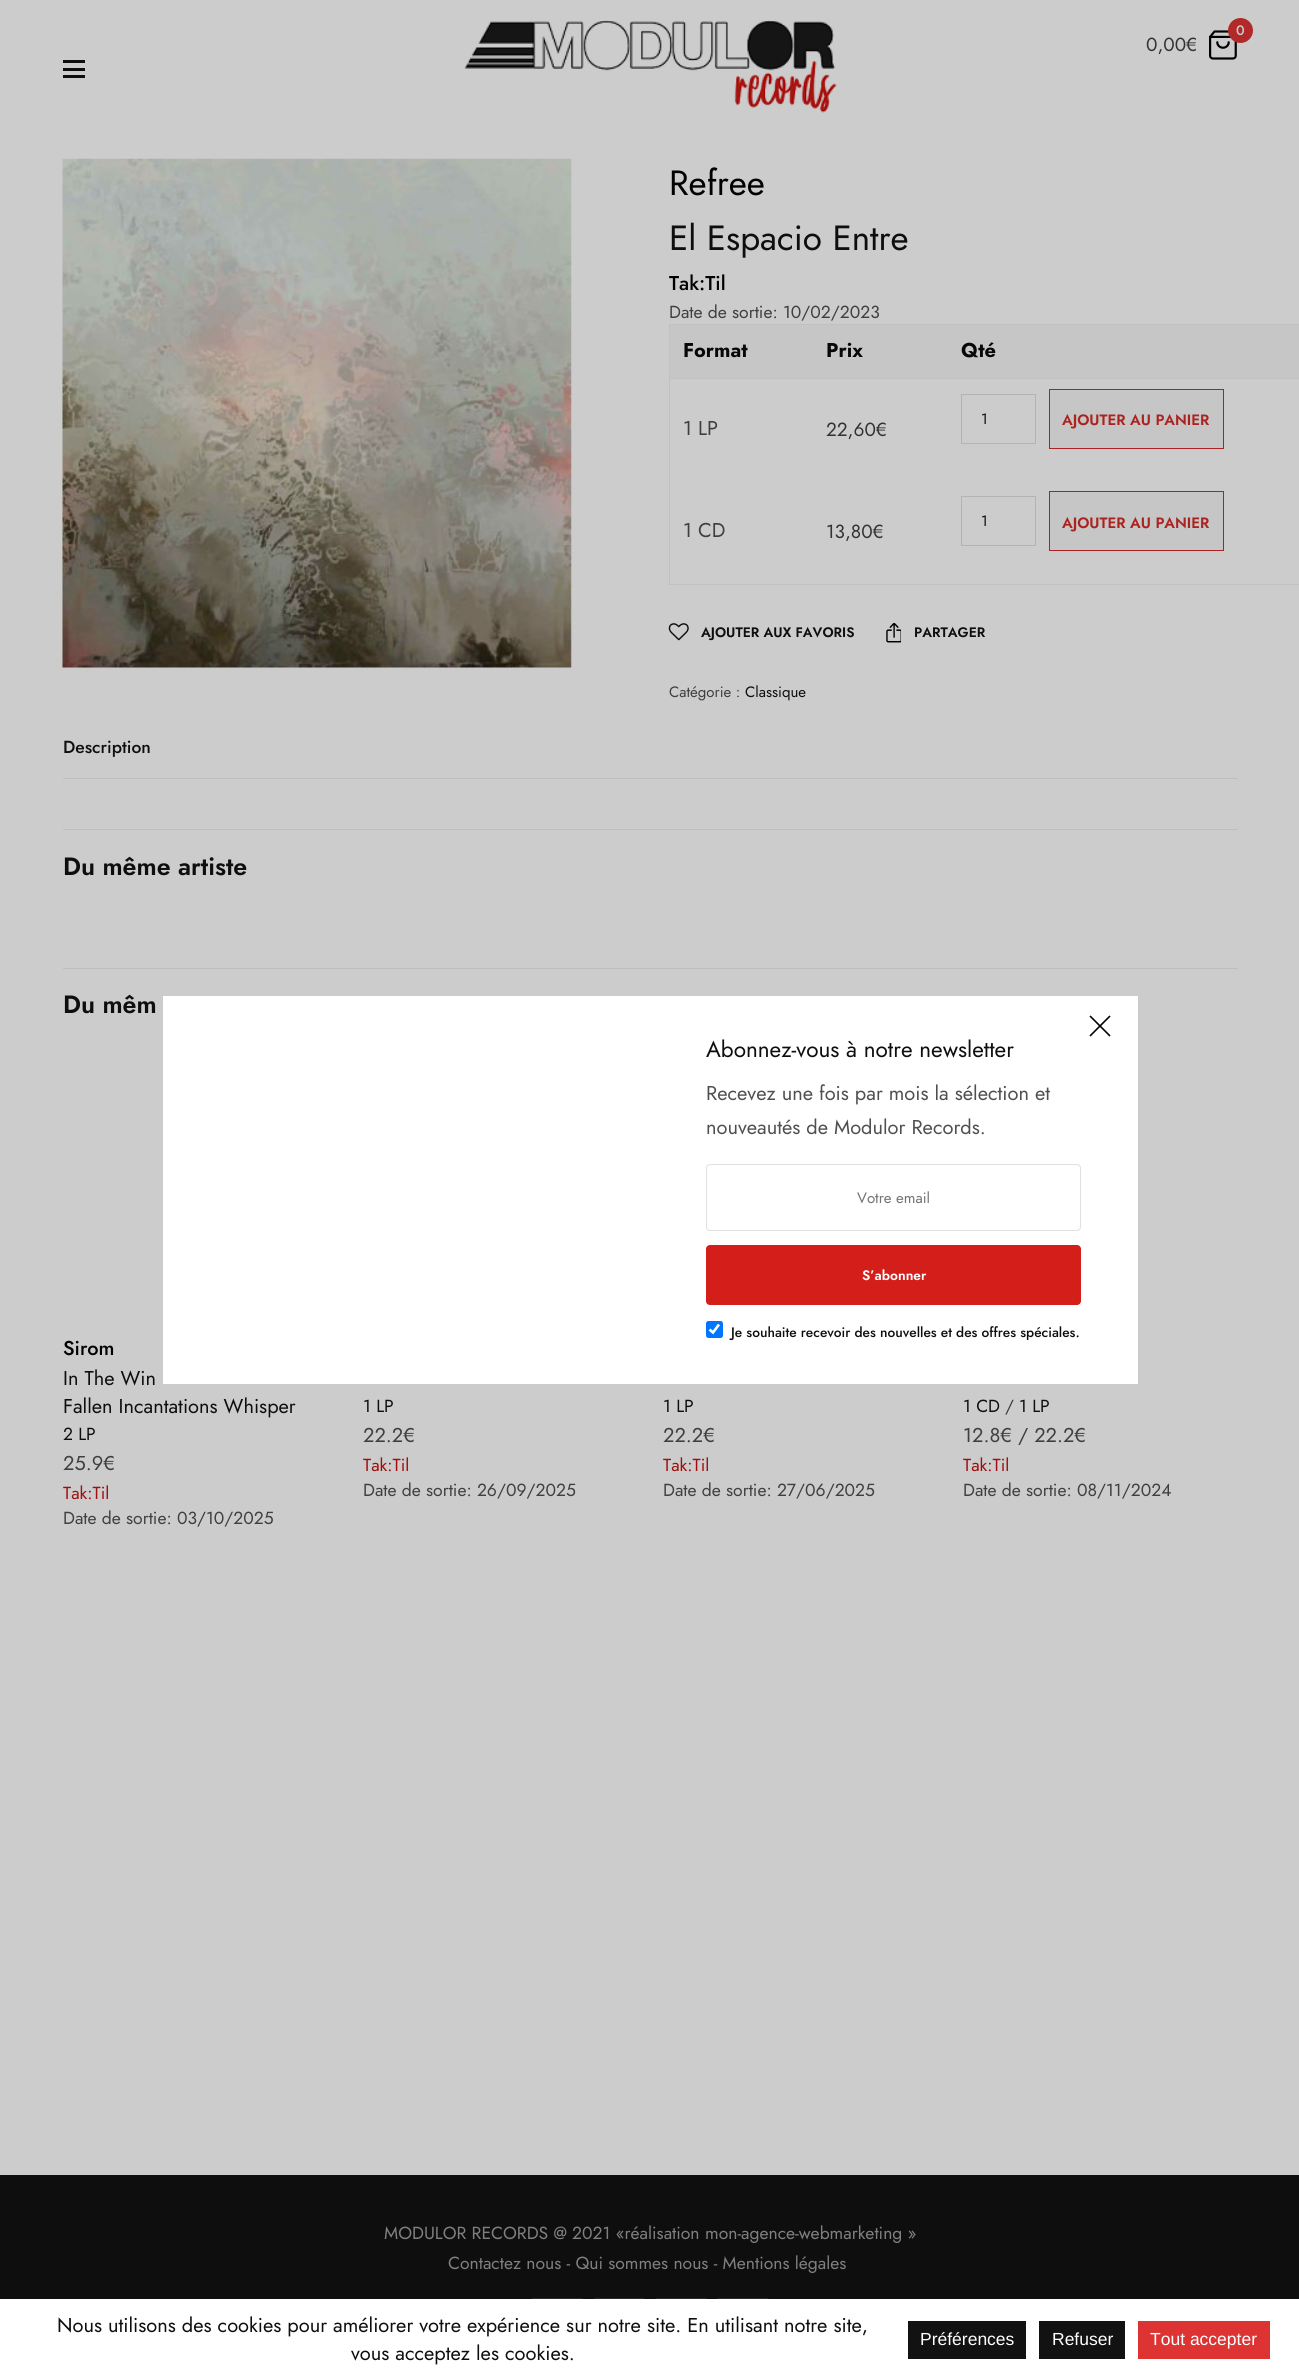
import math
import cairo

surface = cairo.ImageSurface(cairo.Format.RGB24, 1299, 2380)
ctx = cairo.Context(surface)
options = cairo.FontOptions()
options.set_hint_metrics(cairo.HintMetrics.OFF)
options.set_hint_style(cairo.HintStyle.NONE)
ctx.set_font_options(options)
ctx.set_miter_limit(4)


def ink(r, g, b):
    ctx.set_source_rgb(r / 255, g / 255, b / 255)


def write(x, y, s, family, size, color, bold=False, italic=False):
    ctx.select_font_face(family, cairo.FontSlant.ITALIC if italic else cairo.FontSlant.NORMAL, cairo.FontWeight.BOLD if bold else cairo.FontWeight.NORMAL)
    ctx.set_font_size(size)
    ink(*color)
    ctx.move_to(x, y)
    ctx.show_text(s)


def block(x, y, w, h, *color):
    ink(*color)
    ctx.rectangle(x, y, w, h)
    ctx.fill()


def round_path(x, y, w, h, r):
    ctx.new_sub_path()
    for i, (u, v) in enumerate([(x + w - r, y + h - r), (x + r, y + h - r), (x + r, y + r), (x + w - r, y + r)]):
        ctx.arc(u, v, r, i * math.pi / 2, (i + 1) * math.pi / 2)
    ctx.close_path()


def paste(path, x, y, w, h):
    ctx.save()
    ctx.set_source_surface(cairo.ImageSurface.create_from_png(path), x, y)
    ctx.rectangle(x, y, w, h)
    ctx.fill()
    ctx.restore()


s1 = dict(family="Jost Medium", size=13.75, color=(204, 204, 204))
s2 = dict(family="Jost", size=19, color=(51, 51, 51))
s3 = dict(family="Jost", size=35, color=(0, 0, 0))
s4 = dict(family="Jost", size=35, color=(14, 14, 14))
s5 = dict(family="Jost Medium", size=20, color=(0, 0, 0))
s6 = dict(family="Jost", size=17.5, color=(63, 63, 63))
s7 = dict(family="Jost", size=20, color=(8, 8, 8), bold=True)
s8 = dict(family="Jost", size=20, color=(63, 63, 63))
s9 = dict(family="Jost", size=15, color=(14, 14, 14))
s10 = dict(family="Jost SemiBold", size=15, color=(171, 35, 32))
s11 = dict(family="Jost SemiBold", size=13.75, color=(14, 14, 14))
s12 = dict(family="Jost", size=15, color=(63, 63, 63))
s13 = dict(family="Jost Medium", size=17.5, color=(14, 14, 14))
s14 = dict(family="Jost SemiBold", size=25, color=(14, 14, 14))
s15 = dict(family="Jost", size=20, color=(14, 14, 14))
s16 = dict(family="Jost", size=17.5, color=(14, 14, 14))
s17 = dict(family="Jost", size=17.5, color=(161, 12, 12))
s18 = dict(family="Jost", size=17.5, color=(128, 128, 128))
s19 = dict(family="Jost", size=22.5, color=(14, 14, 14))
s20 = dict(family="Jost", size=20, color=(79, 79, 79))
s21 = dict(family="Jost", size=15, color=(113, 113, 113))
s22 = dict(family="Jost SemiBold", size=13.75, color=(255, 255, 255))
s23 = dict(family="Jost Medium", size=13.75, color=(14, 14, 14))
s24 = dict(family="Liberation Sans", size=17.5, color=(255, 255, 255))

ink(204, 204, 204)
ctx.paint()
paste("pic1.png", 464, 20, 373, 93)
paste("pic2.png", 1209, 30, 28, 30)
ink(177, 41, 41)
ctx.arc(1240.5, 30.5, 12.5, 0, 2 * math.pi)
ctx.fill()
write(1236, 35, "0", **s1)
write(1146, 51, "0,00€", **s2)
block(63, 60, 22, 3, 14, 14, 14)
block(63, 68, 22, 3, 14, 14, 14)
block(63, 75, 22, 3, 14, 14, 14)
paste("pic3.png", 62, 158, 510, 510)
write(669, 195, "Refree", **s3)
write(669, 250, "El Espacio Entre", **s4)
write(669, 290, "Tak:Til", **s5)
write(669, 318, "Date de sortie: 10/02/2023", **s6)
block(670, 325, 629, 53, 198, 198, 198)
block(669, 324, 630, 1, 193, 193, 193)
block(669, 378, 630, 1, 193, 193, 193)
block(669, 584, 630, 1, 193, 193, 193)
block(669, 378, 1, 207, 193, 193, 193)
block(669, 324, 1, 55, 193, 193, 193)
write(683, 357, "Format", **s7)
write(826, 357, "Prix", **s7)
write(961, 357, "Qté", **s7)
write(683, 435, "1 LP", **s8)
write(826, 436, "22,60€", **s2)
ctx.rectangle(961.5, 394.5, 74, 49)
ink(179, 179, 179)
ctx.set_line_width(1)
ctx.stroke()
write(981, 424, "1", **s9)
ink(198, 198, 198)
ctx.rectangle(1049.5, 389.5, 174, 59)
ctx.fill_preserve()
ink(171, 35, 32)
ctx.stroke()
write(1062, 425, "AJOUTER AU PANIER", **s10)
write(683, 537, "1 CD", **s8)
write(826, 538, "13,80€", **s2)
ctx.rectangle(961.5, 496.5, 74, 49)
ink(179, 179, 179)
ctx.stroke()
write(981, 526, "1", **s9)
ink(198, 198, 198)
ctx.rectangle(1049.5, 491.5, 174, 59)
ctx.fill_preserve()
ink(171, 35, 32)
ctx.stroke()
write(1062, 528, "AJOUTER AU PANIER", **s10)
paste("pic4.png", 668, 623, 21, 18)
write(701, 637, "AJOUTER AUX FAVORIS", **s11)
paste("pic5.png", 886, 623, 15, 20)
write(914, 637, "PARTAGER", **s11)
write(669, 697, "Catégorie :", **s12)
write(745, 697, "Classique", **s9)
block(63, 778, 1175, 1, 190, 190, 190)
write(63, 753, "Description", **s13)
block(63, 829, 1175, 1, 190, 190, 190)
write(63, 875, "Du même artiste", **s14)
block(63, 968, 1175, 1, 190, 190, 190)
write(63, 1013, "Du mêm", **s14)
write(63, 1355, "Sirom", **s5)
write(63, 1385, "In The Win", **s15)
write(63, 1413, "Fallen Incantations Whisper", **s15)
write(63, 1440, "2 LP", **s16)
write(63, 1470, "25.9€", **s8)
write(63, 1499, "Tak:Til", **s17)
write(63, 1524, "Date de sortie: 03/10/2025", **s6)
write(363, 1412, "1 LP", **s16)
write(363, 1442, "22.2€", **s8)
write(363, 1471, "Tak:Til", **s17)
write(363, 1496, "Date de sortie: 26/09/2025", **s6)
write(663, 1412, "1 LP", **s16)
write(663, 1442, "22.2€", **s8)
write(663, 1471, "Tak:Til", **s17)
write(663, 1496, "Date de sortie: 27/06/2025", **s6)
write(963, 1412, "1 CD", **s16)
write(1005, 1412, "/", **s6)
write(1019, 1412, "1 LP", **s16)
write(963, 1442, "12.8€ / 22.2€", **s8)
write(963, 1471, "Tak:Til", **s17)
write(963, 1496, "Date de sortie: 08/11/2024", **s6)
block(0, 2175, 1299, 124, 14, 14, 14)
write(384, 2239, "MODULOR RECORDS @ 2021 «réalisation", **s18)
write(705, 2239, "mon-agence-webmarketing »", **s18)
write(448, 2269, "Contactez nous - Qui sommes nous - Mentions légales", **s18)
round_path(531.5, 2298.5, 52, 31, 2)
ink(43, 43, 43)
ctx.stroke()
round_path(593.5, 2298.5, 51, 31, 2)
ctx.stroke()
round_path(655.5, 2298.5, 52, 31, 2)
ctx.stroke()
round_path(716.5, 2298.5, 52, 31, 2)
ctx.stroke()
block(163, 996, 975, 388, 255, 255, 255)
ctx.new_path()
ctx.move_to(1090, 1016)
ctx.line_to(1110, 1036)
ctx.move_to(1090, 1036)
ctx.line_to(1110, 1016)
ink(0, 0, 0)
ctx.set_line_width(1.6)
ctx.stroke()
write(706, 1057, "Abonnez-vous à notre newsletter", **s19)
write(706, 1100, "Recevez une fois par mois la sélection et", **s20)
write(706, 1134, "nouveautés de Modulor Records.", **s20)
round_path(706.5, 1164.5, 374, 66, 3.5)
ink(224, 224, 224)
ctx.set_line_width(1)
ctx.stroke()
write(857, 1203, "Votre email", **s21)
ink(211, 30, 25)
round_path(706, 1245, 375, 60, 4)
ctx.fill()
write(862, 1280, "S’abonner", **s22)
ink(0, 117, 255)
round_path(706, 1321, 17, 17, 2.5)
ctx.fill()
ctx.new_path()
ctx.move_to(709.5, 1329.5)
ctx.line_to(713, 1332.5)
ctx.line_to(719, 1324.5)
ink(255, 255, 255)
ctx.set_line_width(2.6)
ctx.stroke()
write(731, 1337, "Je souhaite recevoir des nouvelles et des offres spéciales.", **s23)
block(0, 2299, 1299, 81, 255, 255, 255)
write(57, 2332, "Nous utilisons des cookies pour améliorer votre expérience sur notre site. En utilisant notre site,", **s15)
write(351, 2360, "vous acceptez les cookies.", **s15)
block(908, 2321, 118, 38, 18, 18, 18)
write(920, 2345, "Préférences", **s24)
block(1039, 2321, 86, 38, 18, 18, 18)
write(1052, 2345, "Refuser", **s24)
block(1138, 2321, 132, 38, 221, 51, 51)
write(1150, 2345, "Tout accepter", **s24)
surface.write_to_png("screenshot.png")
